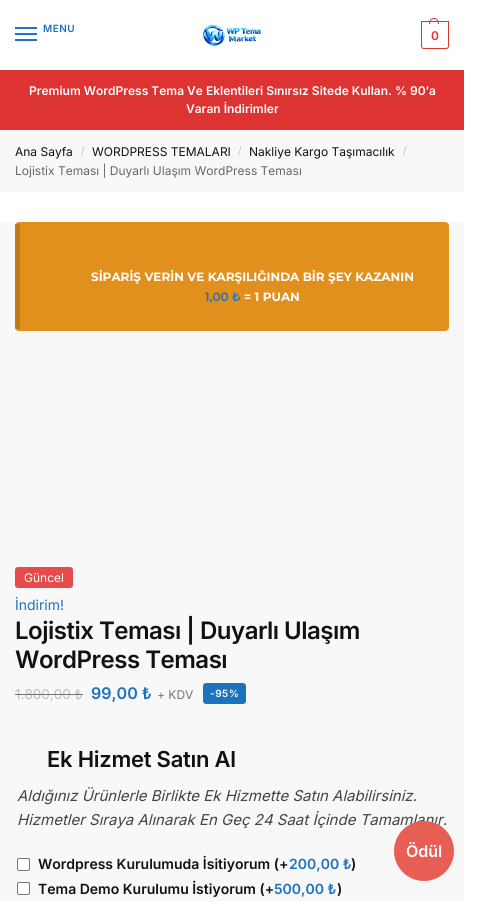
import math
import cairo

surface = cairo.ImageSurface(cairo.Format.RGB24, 479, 901)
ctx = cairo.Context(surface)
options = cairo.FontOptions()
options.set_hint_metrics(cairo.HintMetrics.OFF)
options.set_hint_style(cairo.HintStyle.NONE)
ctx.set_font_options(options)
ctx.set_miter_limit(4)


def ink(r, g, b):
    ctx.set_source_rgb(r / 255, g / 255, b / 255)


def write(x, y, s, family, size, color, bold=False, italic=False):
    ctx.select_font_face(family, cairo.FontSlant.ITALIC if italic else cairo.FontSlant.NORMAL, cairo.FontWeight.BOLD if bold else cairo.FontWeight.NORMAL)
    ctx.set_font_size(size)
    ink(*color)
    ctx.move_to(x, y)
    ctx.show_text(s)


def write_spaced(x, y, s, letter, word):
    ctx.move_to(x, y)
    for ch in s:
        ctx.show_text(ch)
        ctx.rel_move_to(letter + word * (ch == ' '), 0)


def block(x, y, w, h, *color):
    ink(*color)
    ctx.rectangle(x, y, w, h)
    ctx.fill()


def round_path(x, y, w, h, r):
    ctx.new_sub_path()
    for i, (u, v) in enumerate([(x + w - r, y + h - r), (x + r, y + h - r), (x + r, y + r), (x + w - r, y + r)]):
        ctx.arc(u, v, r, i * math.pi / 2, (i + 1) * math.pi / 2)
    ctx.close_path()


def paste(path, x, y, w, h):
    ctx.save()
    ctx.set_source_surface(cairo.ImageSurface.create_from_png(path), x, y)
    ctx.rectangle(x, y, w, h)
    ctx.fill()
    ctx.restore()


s1 = dict(family="Inter SemiBold", size=12, color=(255, 255, 255))
s2 = dict(family="Inter", size=12, color=(17, 17, 17))
s3 = dict(family="Inter", size=10, color=(190, 190, 190))
s4 = dict(family="Inter", size=12, color=(102, 102, 102))
s5 = dict(family="Montserrat", size=12, color=(255, 255, 255), bold=True)
s6 = dict(family="Montserrat SemiBold", size=12, color=(30, 115, 190))
s7 = dict(family="Inter", size=12, color=(255, 255, 255))
s8 = dict(family="Inter", size=14, color=(30, 115, 190))
s9 = dict(family="Inter", size=13.5, color=(190, 190, 190))
s10 = dict(family="Inter SemiBold", size=16, color=(30, 115, 190))
s11 = dict(family="Inter", size=12, color=(118, 118, 118))
s12 = dict(family="Inter", size=15, color=(68, 68, 68), italic=True)
s13 = dict(family="Inter SemiBold", size=14, color=(17, 17, 17))
s14 = dict(family="Inter SemiBold", size=14, color=(30, 115, 190))
s15 = dict(family="Inter SemiBold", size=16, color=(255, 255, 255))

ink(255, 255, 255)
ctx.paint()
block(15, 27, 22, 2, 30, 115, 190)
ctx.select_font_face("Inter SemiBold")
ctx.set_font_size(10)
write_spaced(43, 32, "MENU", 0.5, 0)
block(15, 33, 22, 2, 30, 115, 190)
block(15, 39, 22, 2, 30, 115, 190)
paste("pic1.png", 203, 24, 58, 22)
ctx.new_path()
ctx.move_to(421.5, 21.5)
ctx.line_to(448.5, 21.5)
ctx.line_to(448.5, 46)
ctx.curve_to(448.5, 47.5, 447.5, 48.5, 446, 48.5)
ctx.line_to(424, 48.5)
ctx.curve_to(422.5, 48.5, 421.5, 47.5, 421.5, 46)
ctx.close_path()
ink(221, 51, 51)
ctx.set_line_width(1)
ctx.stroke()
ctx.set_fill_rule(cairo.FillRule.EVEN_ODD)
ctx.new_path()
ctx.move_to(434, 18)
ctx.curve_to(437.5, 18, 439, 21, 439, 24)
ctx.line_to(429, 24)
ctx.curve_to(429, 21, 430.5, 18, 434, 18)
ctx.close_path()
ctx.move_to(434, 19)
ctx.curve_to(437, 19, 438, 21.5, 438, 24)
ctx.line_to(430, 24)
ctx.curve_to(430, 21.5, 431, 19, 434, 19)
ctx.close_path()
ctx.fill()
ctx.set_font_size(12)
write_spaced(431, 40, "0", -1, 0)
block(0, 70, 464, 60, 221, 51, 51)
write(29, 95, "Premium WordPress Tema Ve Eklentileri Sınırsız Sitede Kullan. % 90’a", **s1)
write(186, 113, "Varan İndirimler", **s1)
block(0, 130, 464, 62, 248, 248, 248)
write(15, 156, "Ana Sayfa", **s2)
write(81, 154, "/", **s3)
write(92, 156, "WORDPRESS TEMALARI", **s2)
write(238, 154, "/", **s3)
write(249, 156, "Nakliye Kargo Taşımacılık", **s2)
write(403, 154, "/", **s3)
write(15, 175, "Lojistix Teması | Duyarlı Ulaşım WordPress Teması", **s4)
block(0, 222, 464, 679, 248, 248, 248)
ink(226, 144, 29)
round_path(15, 222, 434, 109, 4)
ctx.fill()
ctx.set_source_rgba(0, 0, 0, 0.15)
ctx.rectangle(15, 224, 5, 105)
ctx.fill()
write(91, 281, "SİPARİŞ VERİN VE KARŞILIĞINDA BİR ŞEY KAZANIN", **s5)
write(205, 301, "1,00 ₺", **s6)
write(244, 301, "= 1 PUAN", **s5)
ink(230, 74, 73)
round_path(15, 567, 58, 21, 3)
ctx.fill()
write(24, 582, "Güncel", **s7)
write(15, 610, "İndirim!", **s8)
ctx.select_font_face("Inter SemiBold")
ctx.set_font_size(24)
ink(17, 17, 17)
write_spaced(15, 639, "Lojistix Teması | Duyarlı Ulaşım", -0.5, 0)
write_spaced(15, 668, "WordPress Teması", -0.5, 0)
write(15, 699, "1.800,00 ₺", **s9)
block(15, 694, 68, 1, 114, 118, 124)
write(91, 699, "99,00 ₺", **s10)
write(157, 699, "+ KDV", **s11)
ink(30, 115, 190)
round_path(203, 683, 43, 21, 3)
ctx.fill()
ctx.select_font_face("Inter SemiBold")
ctx.set_font_size(10)
ink(255, 255, 255)
write_spaced(210, 697, "-95%", 0.5, 0)
ctx.set_font_size(22)
ink(17, 17, 17)
write_spaced(47, 767, "Ek Hizmet Satın Al", -0.25, 0)
write(17, 801, "Aldığınız Ürünlerle Birlikte Ek Hizmette Satın Alabilirsiniz.", **s12)
write(17, 825, "Hizmetler Sıraya Alınarak En Geç 24 Saat İçinde Tamamlanır.", **s12)
ink(255, 255, 255)
round_path(17.5, 858.5, 12, 12, 1.5)
ctx.fill_preserve()
ink(118, 118, 118)
ctx.stroke()
write(38, 869, "Wordpress Kurulumuda İsitiyorum (+", **s13)
write(289, 869, "200,00 ₺", **s14)
write(351, 869, ")", **s13)
ink(255, 255, 255)
round_path(17.5, 882.5, 12, 12, 1.5)
ctx.fill_preserve()
ink(118, 118, 118)
ctx.stroke()
write(38, 894, "Tema Demo Kurulumu İstiyorum (+", **s13)
write(274, 894, "500,00 ₺", **s14)
write(337, 894, ")", **s13)
ink(232, 94, 84)
ctx.new_path()
ctx.arc(424, 851, 30, 0, 2 * math.pi)
ctx.fill()
write(406, 857, "Ödül", **s15)
surface.write_to_png("screenshot.png")
